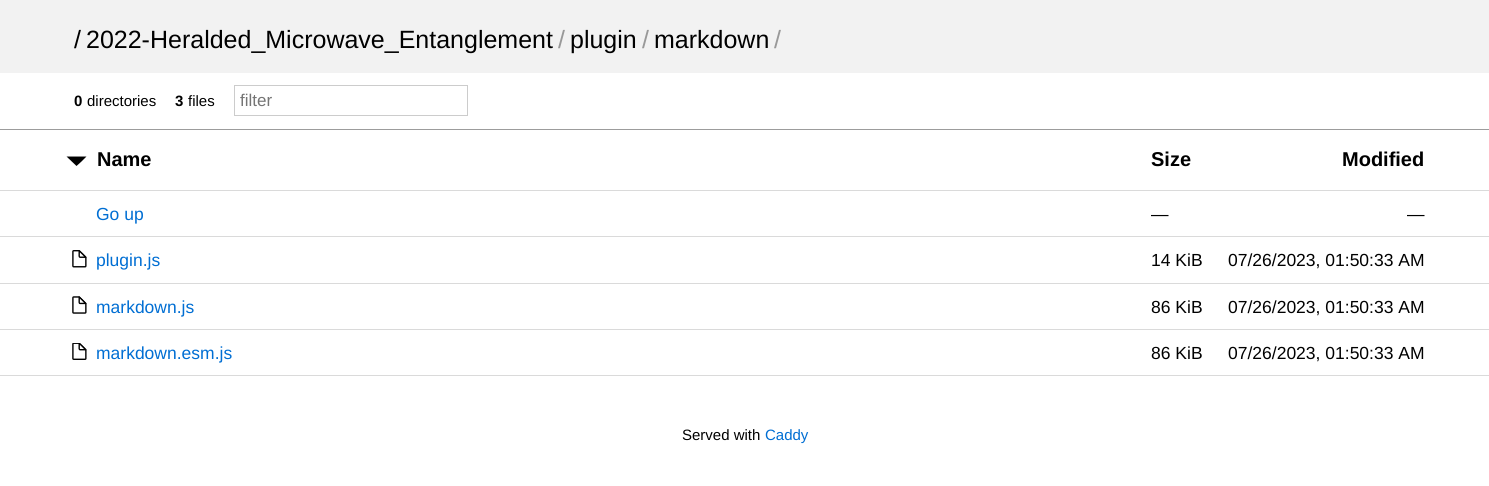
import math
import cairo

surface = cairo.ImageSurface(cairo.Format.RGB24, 1489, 486)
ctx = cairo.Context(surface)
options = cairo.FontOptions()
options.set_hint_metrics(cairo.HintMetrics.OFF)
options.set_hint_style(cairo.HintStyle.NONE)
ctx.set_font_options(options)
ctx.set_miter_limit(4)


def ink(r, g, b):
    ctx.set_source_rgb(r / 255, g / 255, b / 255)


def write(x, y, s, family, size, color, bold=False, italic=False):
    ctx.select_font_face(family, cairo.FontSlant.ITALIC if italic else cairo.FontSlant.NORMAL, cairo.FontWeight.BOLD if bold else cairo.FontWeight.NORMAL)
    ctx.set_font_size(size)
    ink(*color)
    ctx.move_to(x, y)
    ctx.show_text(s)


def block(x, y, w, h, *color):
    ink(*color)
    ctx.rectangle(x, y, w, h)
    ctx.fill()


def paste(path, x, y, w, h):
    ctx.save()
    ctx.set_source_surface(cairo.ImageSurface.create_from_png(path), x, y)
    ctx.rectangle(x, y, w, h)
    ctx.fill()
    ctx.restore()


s1 = dict(family="Liberation Sans", size=25, color=(0, 0, 0))
s2 = dict(family="Liberation Sans", size=25, color=(153, 153, 153))
s3 = dict(family="Liberation Sans", size=15, color=(0, 0, 0), bold=True)
s4 = dict(family="Liberation Sans", size=15, color=(0, 0, 0))
s5 = dict(family="Liberation Sans", size=17, color=(117, 117, 117))
s6 = dict(family="Liberation Sans", size=20, color=(0, 0, 0), bold=True)
s7 = dict(family="Liberation Sans", size=17.5, color=(0, 110, 211))
s8 = dict(family="Liberation Sans", size=17.5, color=(0, 0, 0))
s9 = dict(family="Liberation Sans", size=15, color=(0, 110, 211))

ink(255, 255, 255)
ctx.paint()
block(0, 0, 1489, 73, 242, 242, 242)
write(74, 48, "/", **s1)
write(86, 48, "2022-Heralded_Microwave_Entanglement", **s1)
write(558, 48, "/", **s2)
write(570, 48, "plugin", **s1)
write(642, 48, "/", **s2)
write(654, 48, "markdown", **s1)
write(774, 48, "/", **s2)
block(0, 129, 1489, 1, 156, 156, 156)
write(74, 106, "0", **s3)
write(87, 106, "directories", **s4)
write(175, 106, "3", **s3)
write(188, 106, "files", **s4)
ctx.rectangle(234.5, 85.5, 233, 30)
ink(204, 204, 204)
ctx.set_line_width(1)
ctx.stroke()
write(240, 106, "filter", **s5)
block(0, 190, 1489, 1, 218, 218, 218)
ink(0, 0, 0)
ctx.new_path()
ctx.move_to(86.5, 156.5)
ctx.line_to(66.5, 156.5)
ctx.line_to(76.5, 166)
ctx.line_to(81.5, 161.5)
ctx.close_path()
ctx.fill()
write(97, 166, "Name", **s6)
write(1151, 166, "Size", **s6)
write(1342, 166, "Modified", **s6)
block(0, 236, 1489, 1, 218, 218, 218)
write(96, 220, "Go up", **s7)
write(1151, 220, "—", **s8)
write(1407, 220, "—", **s8)
block(0, 283, 1489, 1, 218, 218, 218)
paste("pic1.png", 72, 250, 15, 18)
write(96, 266, "plugin.js", **s7)
write(1151, 266, "14 KiB", **s8)
write(1228, 266, "07/26/2023, 01:50:33 AM", **s8)
block(0, 329, 1489, 1, 218, 218, 218)
paste("pic2.png", 72, 296, 15, 18)
write(96, 313, "markdown.js", **s7)
write(1151, 313, "86 KiB", **s8)
write(1228, 313, "07/26/2023, 01:50:33 AM", **s8)
block(0, 375, 1489, 1, 218, 218, 218)
paste("pic3.png", 72, 343, 15, 17)
write(96, 359, "markdown.esm.js", **s7)
write(1151, 359, "86 KiB", **s8)
write(1228, 359, "07/26/2023, 01:50:33 AM", **s8)
write(682, 440, "Served with", **s4)
write(765, 440, "Caddy", **s9)
surface.write_to_png("screenshot.png")
